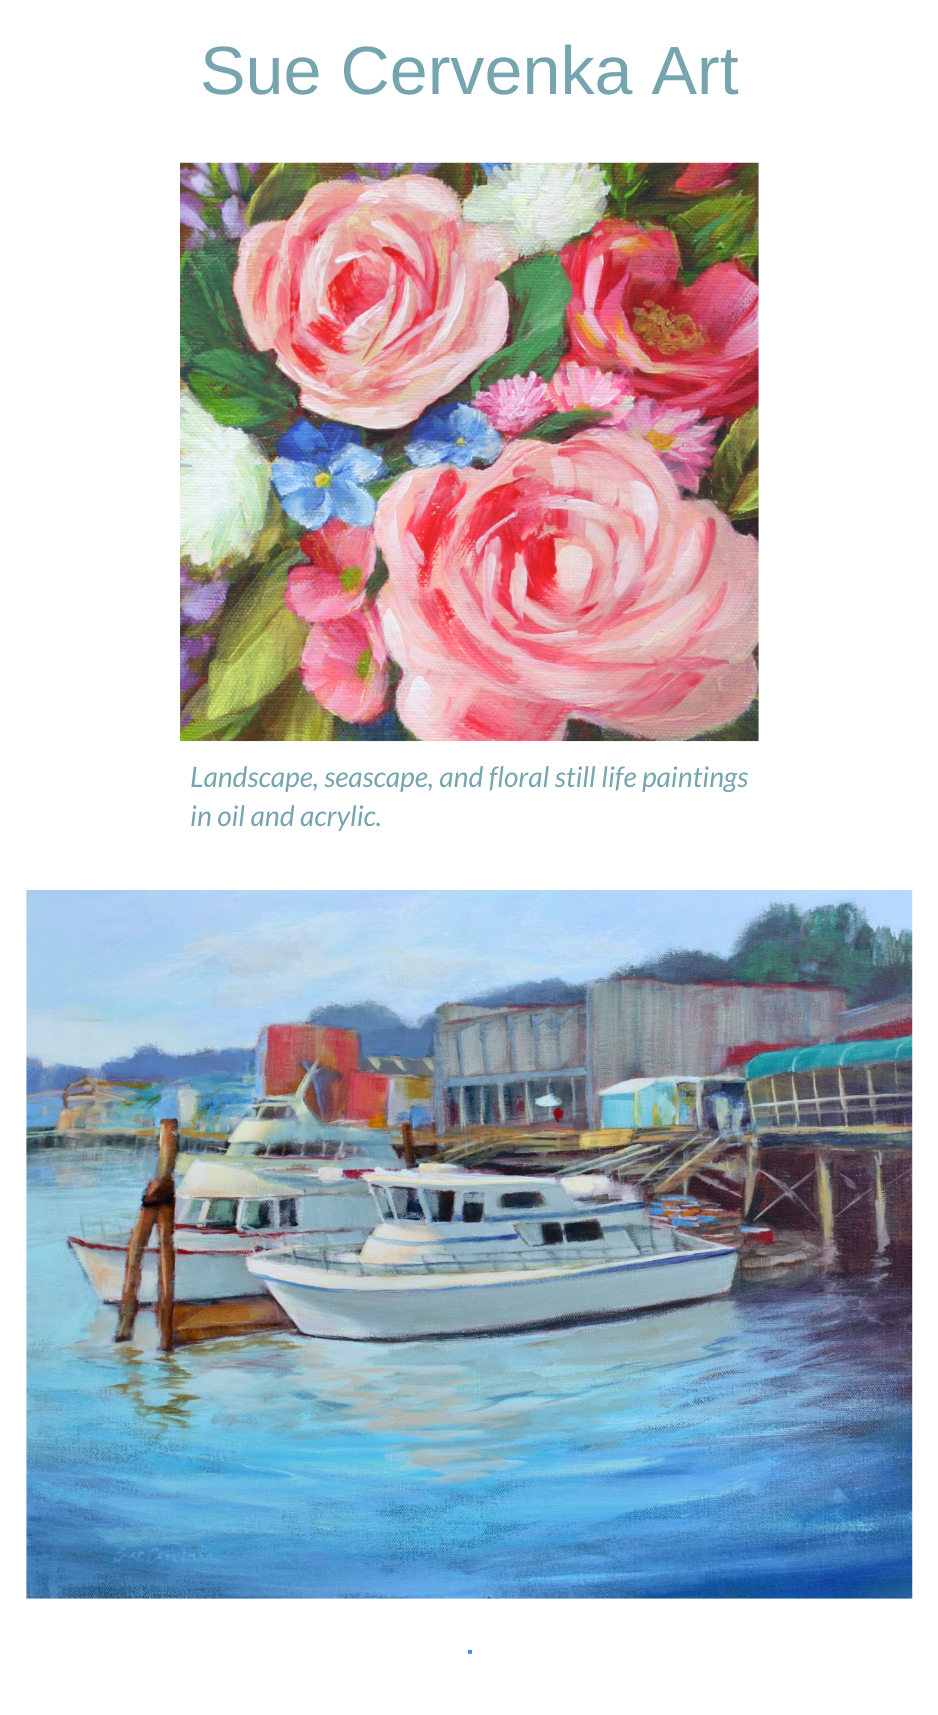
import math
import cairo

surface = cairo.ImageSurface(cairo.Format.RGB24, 938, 1715)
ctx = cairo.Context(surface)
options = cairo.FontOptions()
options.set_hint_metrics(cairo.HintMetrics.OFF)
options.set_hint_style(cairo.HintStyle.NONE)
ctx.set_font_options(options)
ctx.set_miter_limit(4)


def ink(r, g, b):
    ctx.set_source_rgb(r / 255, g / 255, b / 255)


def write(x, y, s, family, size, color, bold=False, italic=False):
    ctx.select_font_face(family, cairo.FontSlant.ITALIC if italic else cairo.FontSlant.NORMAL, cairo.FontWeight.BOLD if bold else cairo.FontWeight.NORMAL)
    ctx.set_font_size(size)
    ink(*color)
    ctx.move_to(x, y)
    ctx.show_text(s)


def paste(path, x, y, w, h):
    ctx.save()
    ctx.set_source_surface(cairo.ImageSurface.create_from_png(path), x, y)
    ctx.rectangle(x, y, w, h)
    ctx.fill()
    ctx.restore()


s1 = dict(family="Liberation Sans", size=68.25, color=(118, 165, 175))
s2 = dict(family="Lato", size=28.3, color=(118, 165, 175), italic=True)

ink(255, 255, 255)
ctx.paint()
write(200, 94, "Sue Cervenka Art", **s1)
paste("pic1.png", 180, 162, 579, 580)
write(190, 787, "Landscape, seascape, and floral still life paintings", **s2)
write(190, 826, "in oil and acrylic.", **s2)
paste("pic2.png", 26, 890, 887, 709)
ctx.save()
ctx.rectangle(453, 1650, 17, 35)
ctx.clip()
ctx.new_path()
ctx.move_to(468, 1652)
ctx.curve_to(471, 1651.5, 474, 1652, 477, 1653.5)
ctx.curve_to(490.5, 1661, 486, 1681.5, 470.5, 1683)
ink(68, 134, 244)
ctx.set_line_width(3.7)
ctx.stroke()
ctx.restore()
ctx.save()
ctx.rectangle(468, 1650, 4, 35)
ctx.clip()
ctx.new_path()
ctx.move_to(459, 1678.5)
ctx.curve_to(455, 1675, 453.5, 1669.5, 454.5, 1664.5)
ctx.curve_to(455.5, 1660.5, 457.5, 1657, 461, 1654.5)
ctx.curve_to(476, 1644, 492.5, 1665.5, 480, 1678.5)
ink(68, 134, 244)
ctx.set_line_width(3.8)
ctx.stroke()
ctx.restore()
ctx.save()
ctx.rectangle(470, 1650, 18, 35)
ctx.clip()
ctx.new_path()
ctx.move_to(468, 1683)
ctx.curve_to(465, 1682.5, 462, 1681.5, 459.5, 1679.5)
ctx.curve_to(447.5, 1670, 455.5, 1650.5, 470.5, 1652)
ink(68, 134, 244)
ctx.set_line_width(3.7)
ctx.stroke()
ctx.restore()
surface.write_to_png("screenshot.png")
